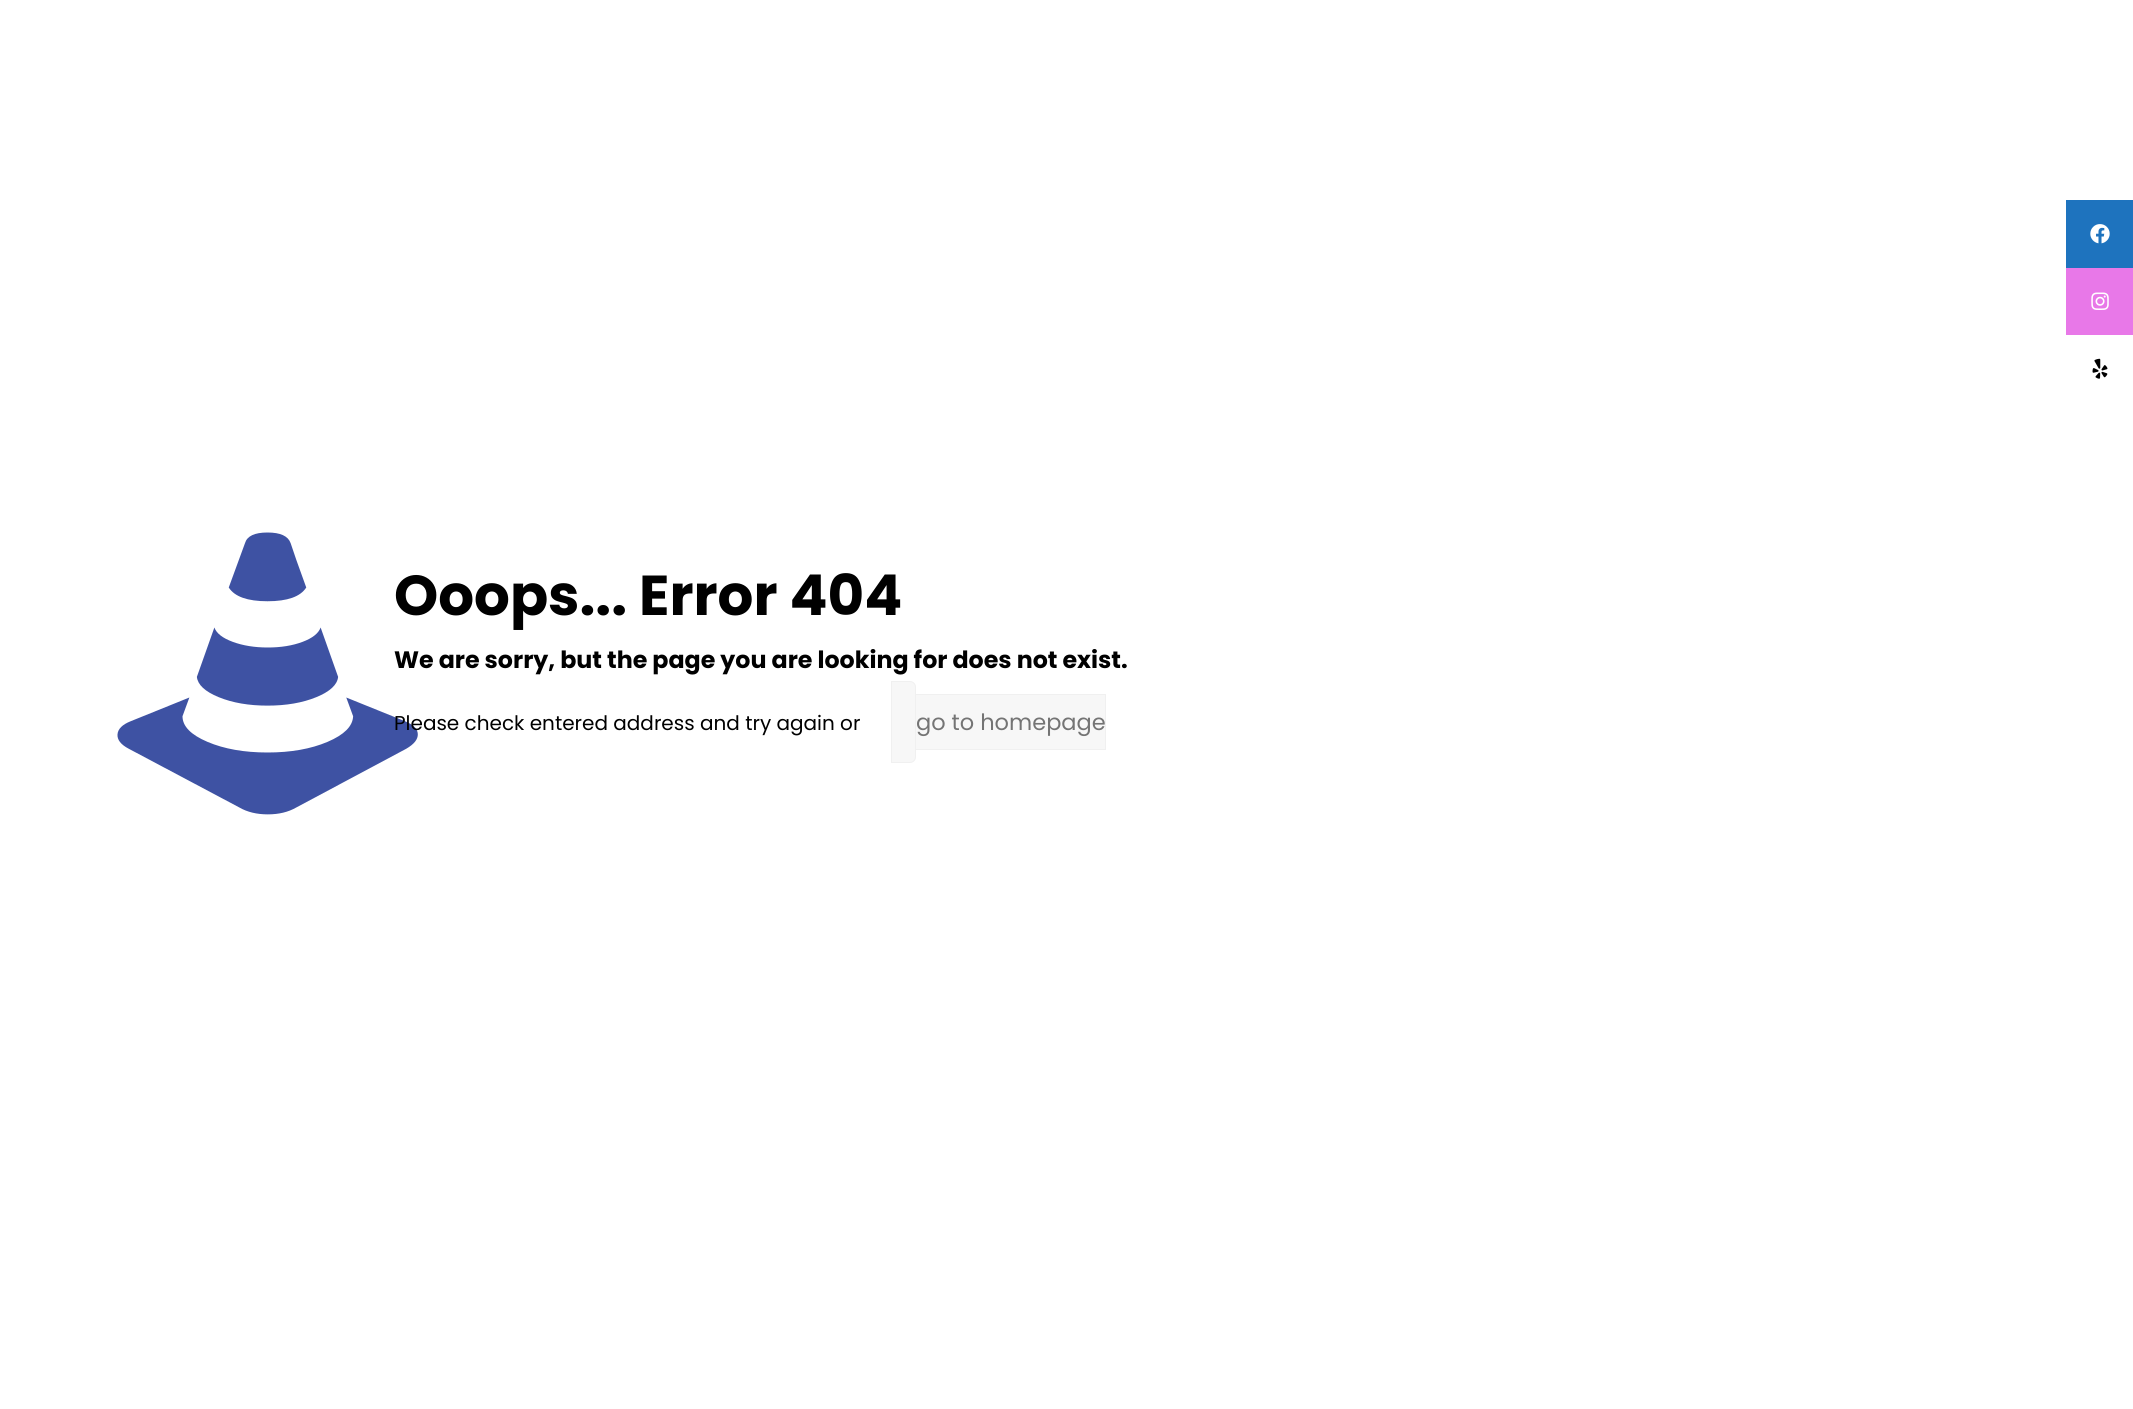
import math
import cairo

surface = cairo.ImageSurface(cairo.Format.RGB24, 2133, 1409)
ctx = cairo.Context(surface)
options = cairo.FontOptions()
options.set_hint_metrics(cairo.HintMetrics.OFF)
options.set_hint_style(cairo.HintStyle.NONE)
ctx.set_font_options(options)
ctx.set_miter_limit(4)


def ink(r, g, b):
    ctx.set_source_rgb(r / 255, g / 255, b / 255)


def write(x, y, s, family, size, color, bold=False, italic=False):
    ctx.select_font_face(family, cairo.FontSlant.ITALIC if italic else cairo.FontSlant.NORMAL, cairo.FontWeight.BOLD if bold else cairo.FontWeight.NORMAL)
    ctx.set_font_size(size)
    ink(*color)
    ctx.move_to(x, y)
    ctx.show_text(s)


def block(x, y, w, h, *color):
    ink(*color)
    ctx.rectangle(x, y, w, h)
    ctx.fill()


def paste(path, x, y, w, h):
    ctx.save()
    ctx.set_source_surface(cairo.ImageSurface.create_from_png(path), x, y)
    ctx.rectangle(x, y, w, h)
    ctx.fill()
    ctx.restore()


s1 = dict(family="Poppins", size=56.25, color=(0, 0, 0), bold=True)
s2 = dict(family="Poppins", size=23.75, color=(0, 0, 0), bold=True)
s3 = dict(family="Poppins", size=20, color=(0, 0, 0))
s4 = dict(family="Poppins", size=22.5, color=(116, 116, 116))

ink(255, 255, 255)
ctx.paint()
block(2066, 200, 67, 68, 30, 115, 190)
paste("pic1.png", 2090, 224, 20, 20)
block(2066, 268, 67, 67, 232, 120, 232)
paste("pic2.png", 2091, 292, 18, 18)
paste("pic3.png", 2092, 358, 16, 21)
paste("pic4.png", 117, 532, 301, 283)
write(394, 615, "Ooops... Error 404", **s1)
write(394, 668, "We are sorry, but the page you are looking for does not exist.", **s2)
write(394, 730, "Please check entered address and try again or", **s3)
block(916, 695, 189, 54, 247, 247, 247)
ctx.rectangle(891.5, 694.5, 214, 55)
ink(240, 240, 240)
ctx.set_line_width(1)
ctx.stroke()
write(916, 730, "go to homepage", **s4)
ink(247, 247, 247)
ctx.new_path()
ctx.move_to(891.5, 681.5)
ctx.line_to(910, 681.5)
ctx.curve_to(913, 681.5, 915.5, 684, 915.5, 687)
ctx.line_to(915.5, 757)
ctx.curve_to(915.5, 760, 913, 762.5, 910, 762.5)
ctx.line_to(891.5, 762.5)
ctx.close_path()
ctx.fill_preserve()
ink(240, 240, 240)
ctx.stroke()
surface.write_to_png("screenshot.png")
